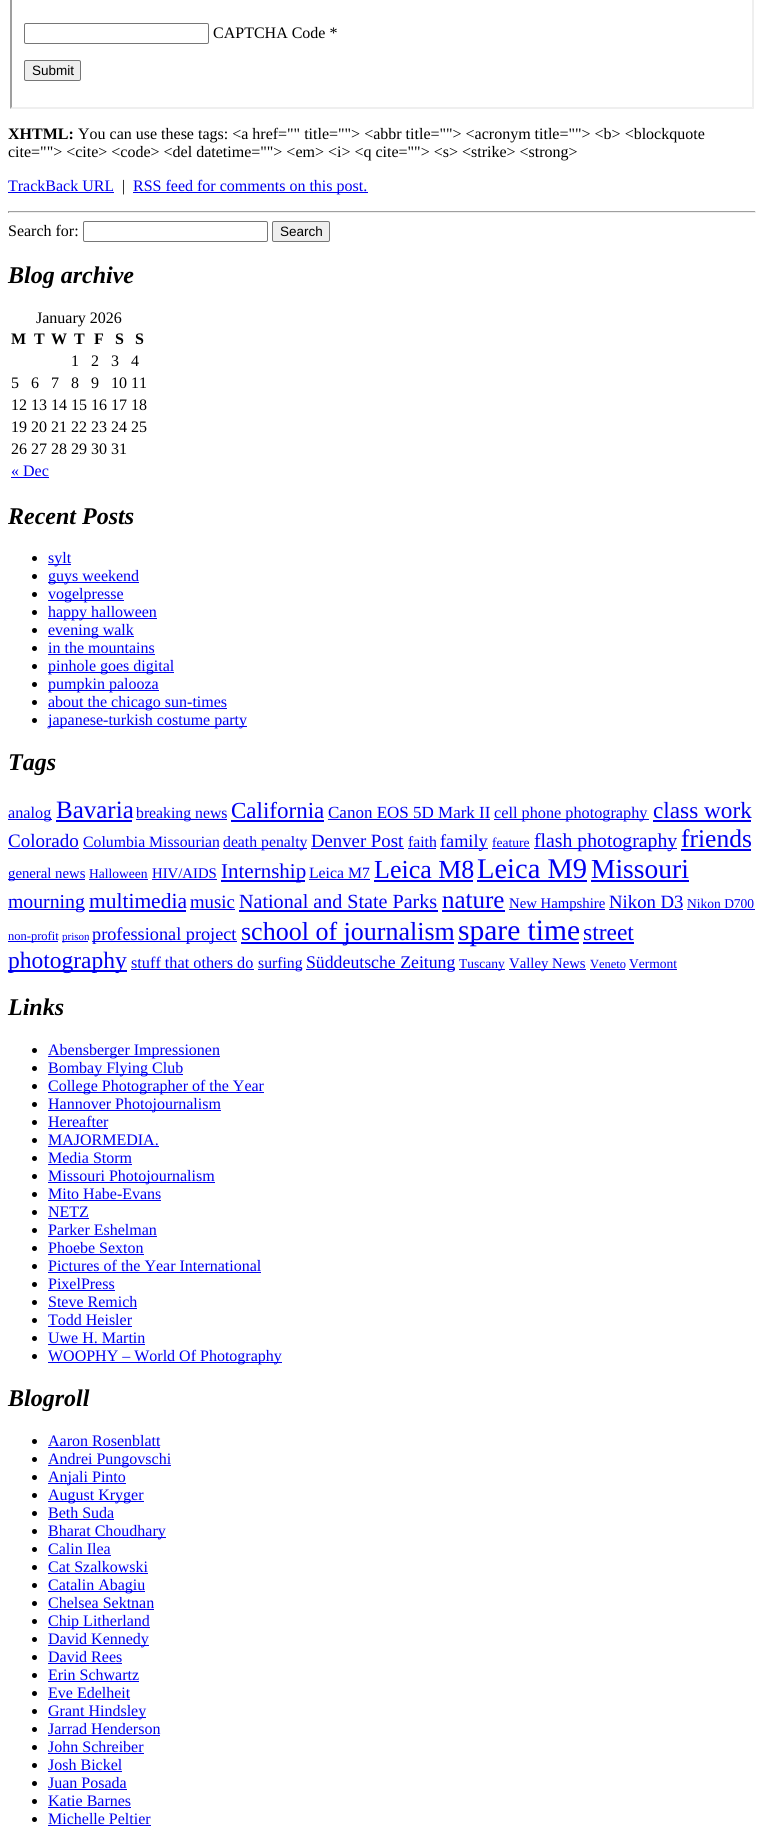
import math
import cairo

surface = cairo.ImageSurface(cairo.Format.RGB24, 764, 1834)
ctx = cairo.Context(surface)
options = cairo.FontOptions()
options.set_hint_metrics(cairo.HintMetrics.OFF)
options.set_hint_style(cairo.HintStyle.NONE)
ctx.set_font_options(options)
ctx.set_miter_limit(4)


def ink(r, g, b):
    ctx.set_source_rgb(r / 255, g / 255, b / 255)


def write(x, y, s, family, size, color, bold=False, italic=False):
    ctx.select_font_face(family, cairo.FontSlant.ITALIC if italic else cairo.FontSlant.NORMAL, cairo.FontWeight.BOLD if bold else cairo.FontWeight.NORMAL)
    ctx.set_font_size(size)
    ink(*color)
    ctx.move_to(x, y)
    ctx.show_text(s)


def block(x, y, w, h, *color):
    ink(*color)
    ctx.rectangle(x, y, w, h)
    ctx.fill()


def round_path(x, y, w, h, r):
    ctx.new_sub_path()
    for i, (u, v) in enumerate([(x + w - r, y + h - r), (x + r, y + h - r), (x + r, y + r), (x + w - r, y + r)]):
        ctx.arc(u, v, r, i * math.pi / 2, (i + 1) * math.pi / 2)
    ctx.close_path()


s1 = dict(family="Liberation Serif", size=16, color=(0, 0, 0))
s2 = dict(family="Liberation Sans", size=13.5, color=(0, 0, 0))
s3 = dict(family="Liberation Serif", size=16, color=(0, 0, 0), bold=True)
s4 = dict(family="Liberation Serif", size=16, color=(0, 0, 238))
s5 = dict(family="Liberation Serif", size=24, color=(0, 0, 0), bold=True, italic=True)
s6 = dict(family="Liberation Serif", size=16.25, color=(0, 0, 238))
s7 = dict(family="Liberation Serif", size=25, color=(0, 0, 238))
s8 = dict(family="Liberation Serif", size=15.75, color=(0, 0, 238))
s9 = dict(family="Liberation Serif", size=23, color=(0, 0, 238))
s10 = dict(family="Liberation Serif", size=17, color=(0, 0, 238))
s11 = dict(family="Liberation Serif", size=23.25, color=(0, 0, 238))
s12 = dict(family="Liberation Serif", size=19, color=(0, 0, 238))
s13 = dict(family="Liberation Serif", size=18.75, color=(0, 0, 238))
s14 = dict(family="Liberation Serif", size=18.25, color=(0, 0, 238))
s15 = dict(family="Liberation Serif", size=13.5, color=(0, 0, 238))
s16 = dict(family="Liberation Serif", size=19.75, color=(0, 0, 238))
s17 = dict(family="Liberation Serif", size=25.5, color=(0, 0, 238))
s18 = dict(family="Liberation Serif", size=14.75, color=(0, 0, 238))
s19 = dict(family="Liberation Serif", size=21, color=(0, 0, 238))
s20 = dict(family="Liberation Serif", size=26, color=(0, 0, 238))
s21 = dict(family="Liberation Serif", size=28.5, color=(0, 0, 238))
s22 = dict(family="Liberation Serif", size=27.5, color=(0, 0, 238))
s23 = dict(family="Liberation Serif", size=21.5, color=(0, 0, 238))
s24 = dict(family="Liberation Serif", size=20.1, color=(0, 0, 238))
s25 = dict(family="Liberation Serif", size=12.5, color=(0, 0, 238))
s26 = dict(family="Liberation Serif", size=11, color=(0, 0, 238))
s27 = dict(family="Liberation Serif", size=29.5, color=(0, 0, 238))
s28 = dict(family="Liberation Serif", size=23.5, color=(0, 0, 238))
s29 = dict(family="Liberation Serif", size=17.75, color=(0, 0, 238))

ink(255, 255, 255)
ctx.paint()
ink(239, 239, 239)
ctx.new_path()
ctx.move_to(754, -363)
ctx.line_to(754, 109)
ctx.line_to(752, 107)
ctx.line_to(752, -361)
ctx.close_path()
ctx.fill()
ctx.new_path()
ctx.move_to(754, 109)
ctx.line_to(10, 109)
ctx.line_to(12, 107)
ctx.line_to(752, 107)
ctx.close_path()
ctx.fill()
ink(159, 159, 159)
ctx.new_path()
ctx.move_to(10, 109)
ctx.line_to(10, -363)
ctx.line_to(12, -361)
ctx.line_to(12, 107)
ctx.close_path()
ctx.fill()
round_path(24.5, 23.5, 184, 20, 1.5)
ink(118, 118, 118)
ctx.set_line_width(1)
ctx.stroke()
write(213, 38, "CAPTCHA Code *", **s1)
ink(239, 239, 239)
round_path(24.5, 60.5, 56, 20, 1.5)
ctx.fill_preserve()
ink(118, 118, 118)
ctx.stroke()
write(32, 75, "Submit", **s2)
write(8, 139, "XHTML:", **s3)
write(78, 139, "You can use these tags: <a href=\"\" title=\"\"> <abbr title=\"\"> <acronym title=\"\"> <b> <blockquote", **s1)
write(8, 157, "cite=\"\"> <cite> <code> <del datetime=\"\"> <em> <i> <q cite=\"\"> <s> <strike> <strong>", **s1)
write(8, 191, "TrackBack URL", **s4)
block(8, 192, 106, 1, 0, 0, 238)
write(122, 191, "|", **s1)
block(133, 192, 235, 1, 0, 0, 238)
write(133, 191, "RSS feed for comments on this post.", **s4)
block(8, 211, 748, 1, 159, 159, 159)
block(755, 211, 1, 2, 238, 238, 238)
block(8, 212, 748, 1, 238, 238, 238)
block(8, 211, 1, 2, 159, 159, 159)
write(8, 236, "Search for:", **s1)
round_path(83.5, 221.5, 184, 20, 1.5)
ink(118, 118, 118)
ctx.stroke()
ink(239, 239, 239)
round_path(272.5, 221.5, 57, 20, 1.5)
ctx.fill_preserve()
ink(118, 118, 118)
ctx.stroke()
write(280, 236, "Search", **s2)
write(8, 283, "Blog archive", **s5)
write(36, 323, "January 2026", **s1)
write(11, 344, "M", **s3)
write(34, 344, "T", **s3)
write(51, 344, "W", **s3)
write(74, 344, "T", **s3)
write(94, 344, "F", **s3)
write(115, 344, "S", **s3)
write(135, 344, "S", **s3)
write(71, 366, "1", **s1)
write(91, 366, "2", **s1)
write(111, 366, "3", **s1)
write(131, 366, "4", **s1)
write(11, 388, "5", **s1)
write(31, 388, "6", **s1)
write(51, 388, "7", **s1)
write(71, 388, "8", **s1)
write(91, 388, "9", **s1)
write(111, 388, "10 11", **s1)
write(11, 410, "12 13 14 15 16 17 18", **s1)
write(11, 432, "19 20 21 22 23 24 25", **s1)
write(11, 454, "26 27 28 29 30 31", **s1)
write(11, 476, "« Dec", **s4)
block(11, 477, 38, 1, 0, 0, 238)
write(8, 524, "Recent Posts", **s5)
ctx.new_path()
ctx.arc(34.5, 558.5, 2.5, 0, 2 * math.pi)
ctx.fill()
block(48, 564, 23, 1, 0, 0, 238)
write(48, 563, "sylt", **s4)
ink(0, 0, 0)
ctx.new_path()
ctx.arc(34.5, 576.5, 2.5, 0, 2 * math.pi)
ctx.fill()
block(48, 582, 91, 1, 0, 0, 238)
write(48, 581, "guys weekend", **s4)
ink(0, 0, 0)
ctx.new_path()
ctx.arc(34.5, 594.5, 2.5, 0, 2 * math.pi)
ctx.fill()
block(48, 600, 76, 1, 0, 0, 238)
write(48, 599, "vogelpresse", **s4)
ink(0, 0, 0)
ctx.new_path()
ctx.arc(34.5, 612.5, 2.5, 0, 2 * math.pi)
ctx.fill()
block(48, 618, 109, 1, 0, 0, 238)
write(48, 617, "happy halloween", **s4)
ink(0, 0, 0)
ctx.new_path()
ctx.arc(34.5, 630.5, 2.5, 0, 2 * math.pi)
ctx.fill()
block(48, 636, 86, 1, 0, 0, 238)
write(48, 635, "evening walk", **s4)
ink(0, 0, 0)
ctx.new_path()
ctx.arc(34.5, 648.5, 2.5, 0, 2 * math.pi)
ctx.fill()
write(48, 653, "in the mountains", **s4)
block(48, 654, 107, 1, 0, 0, 238)
ink(0, 0, 0)
ctx.new_path()
ctx.arc(34.5, 666.5, 2.5, 0, 2 * math.pi)
ctx.fill()
block(48, 672, 126, 1, 0, 0, 238)
write(48, 671, "pinhole goes digital", **s4)
ink(0, 0, 0)
ctx.new_path()
ctx.arc(34.5, 684.5, 2.5, 0, 2 * math.pi)
ctx.fill()
block(48, 690, 111, 1, 0, 0, 238)
write(48, 689, "pumpkin palooza", **s4)
ink(0, 0, 0)
ctx.new_path()
ctx.arc(34.5, 702.5, 2.5, 0, 2 * math.pi)
ctx.fill()
block(48, 708, 179, 1, 0, 0, 238)
write(48, 707, "about the chicago sun-times", **s4)
ink(0, 0, 0)
ctx.new_path()
ctx.arc(34.5, 720.5, 2.5, 0, 2 * math.pi)
ctx.fill()
block(48, 726, 199, 1, 0, 0, 238)
write(48, 725, "japanese-turkish costume party", **s4)
write(8, 770, "Tags", **s5)
block(8, 819, 44, 1, 0, 0, 238)
write(8, 818, "analog", **s6)
write(56, 818, "Bavaria", **s7)
block(56, 820, 76, 2, 0, 0, 238)
block(136, 819, 91, 1, 0, 0, 238)
write(136, 818, "breaking news", **s8)
write(231, 818, "California", **s9)
block(231, 820, 93, 2, 0, 0, 238)
write(328, 818, "Canon EOS 5D Mark II", **s10)
block(328, 819, 162, 1, 0, 0, 238)
block(494, 819, 155, 1, 0, 0, 238)
write(494, 818, "cell phone photography", **s6)
write(653, 818, "class work", **s11)
block(653, 820, 98, 2, 0, 0, 238)
write(8, 847, "Colorado", **s12)
block(8, 848, 71, 1, 0, 0, 238)
write(83, 847, "Columbia Missourian", **s8)
block(83, 848, 136, 1, 0, 0, 238)
block(223, 848, 84, 1, 0, 0, 238)
write(223, 847, "death penalty", **s8)
write(311, 847, "Denver Post", **s13)
block(311, 848, 93, 1, 0, 0, 238)
write(408, 847, "faith", **s8)
block(408, 848, 28, 1, 0, 0, 238)
block(440, 848, 48, 1, 0, 0, 238)
write(440, 847, "family", **s14)
write(492, 847, "feature", **s15)
block(492, 848, 38, 1, 0, 0, 238)
block(534, 848, 143, 1, 0, 0, 238)
write(534, 847, "flash photography", **s16)
write(681, 847, "friends", **s17)
block(681, 849, 70, 2, 0, 0, 238)
block(8, 879, 77, 1, 0, 0, 238)
write(8, 878, "general news", **s18)
write(89, 878, "Halloween", **s15)
block(89, 879, 59, 1, 0, 0, 238)
write(152, 878, "HIV/AIDS", **s18)
block(152, 879, 65, 1, 0, 0, 238)
block(221, 880, 84, 2, 0, 0, 238)
write(221, 878, "Internship", **s19)
write(309, 878, "Leica M7", **s8)
block(309, 879, 61, 1, 0, 0, 238)
write(374, 878, "Leica M8", **s20)
block(374, 880, 99, 2, 0, 0, 238)
write(477, 878, "Leica M9", **s21)
block(477, 880, 110, 2, 0, 0, 238)
write(591, 878, "Missouri", **s22)
block(591, 880, 98, 2, 0, 0, 238)
block(8, 909, 77, 1, 0, 0, 238)
write(8, 908, "mourning", **s16)
write(89, 908, "multimedia", **s23)
block(89, 910, 97, 2, 0, 0, 238)
write(190, 908, "music", **s13)
block(190, 909, 45, 1, 0, 0, 238)
write(239, 908, "National and State Parks", **s24)
block(239, 910, 199, 2, 0, 0, 238)
write(442, 908, "nature", **s7)
block(442, 910, 63, 2, 0, 0, 238)
block(509, 909, 96, 1, 0, 0, 238)
write(509, 908, "New Hampshire", **s18)
write(609, 908, "Nikon D3", **s13)
block(609, 909, 74, 1, 0, 0, 238)
write(687, 908, "Nikon D700", **s15)
block(687, 909, 68, 1, 0, 0, 238)
block(8, 941, 50, 1, 0, 0, 238)
write(8, 940, "non-profit", **s25)
block(62, 941, 26, 1, 0, 0, 238)
write(62, 940, "prison", **s26)
block(92, 941, 145, 1, 0, 0, 238)
write(92, 940, "professional project", **s14)
block(241, 942, 213, 2, 0, 0, 238)
write(241, 940, "school of journalism", **s20)
block(458, 942, 121, 2, 0, 0, 238)
write(458, 940, "spare time", **s27)
write(583, 940, "street", **s28)
block(583, 942, 51, 2, 0, 0, 238)
block(8, 970, 119, 2, 0, 0, 238)
write(8, 968, "photography", **s28)
write(131, 968, "stuff that others do", **s6)
block(131, 969, 123, 1, 0, 0, 238)
block(258, 969, 44, 1, 0, 0, 238)
write(258, 968, "surfing", **s8)
block(306, 969, 149, 1, 0, 0, 238)
write(306, 968, "Süddeutsche Zeitung", **s29)
block(459, 969, 46, 1, 0, 0, 238)
write(459, 968, "Tuscany", **s15)
block(509, 969, 77, 1, 0, 0, 238)
write(509, 968, "Valley News", **s18)
write(590, 968, "Veneto", **s25)
block(590, 969, 35, 1, 0, 0, 238)
write(629, 968, "Vermont", **s15)
block(629, 969, 48, 1, 0, 0, 238)
write(8, 1015, "Links", **s5)
ctx.new_path()
ctx.arc(34.5, 1050.5, 2.5, 0, 2 * math.pi)
ctx.fill()
block(48, 1056, 172, 1, 0, 0, 238)
write(48, 1055, "Abensberger Impressionen", **s4)
ink(0, 0, 0)
ctx.new_path()
ctx.arc(34.5, 1068.5, 2.5, 0, 2 * math.pi)
ctx.fill()
block(48, 1074, 135, 1, 0, 0, 238)
write(48, 1073, "Bombay Flying Club", **s4)
ink(0, 0, 0)
ctx.new_path()
ctx.arc(34.5, 1086.5, 2.5, 0, 2 * math.pi)
ctx.fill()
block(48, 1092, 216, 1, 0, 0, 238)
write(48, 1091, "College Photographer of the Year", **s4)
ink(0, 0, 0)
ctx.new_path()
ctx.arc(34.5, 1104.5, 2.5, 0, 2 * math.pi)
ctx.fill()
block(48, 1110, 173, 1, 0, 0, 238)
write(48, 1109, "Hannover Photojournalism", **s4)
ink(0, 0, 0)
ctx.new_path()
ctx.arc(34.5, 1122.5, 2.5, 0, 2 * math.pi)
ctx.fill()
write(48, 1127, "Hereafter", **s4)
block(48, 1128, 60, 1, 0, 0, 238)
ink(0, 0, 0)
ctx.new_path()
ctx.arc(34.5, 1140.5, 2.5, 0, 2 * math.pi)
ctx.fill()
write(48, 1145, "MAJORMEDIA.", **s4)
block(48, 1146, 111, 1, 0, 0, 238)
ink(0, 0, 0)
ctx.new_path()
ctx.arc(34.5, 1158.5, 2.5, 0, 2 * math.pi)
ctx.fill()
write(48, 1163, "Media Storm", **s4)
block(48, 1164, 84, 1, 0, 0, 238)
ink(0, 0, 0)
ctx.new_path()
ctx.arc(34.5, 1176.5, 2.5, 0, 2 * math.pi)
ctx.fill()
block(48, 1182, 167, 1, 0, 0, 238)
write(48, 1181, "Missouri Photojournalism", **s4)
ink(0, 0, 0)
ctx.new_path()
ctx.arc(34.5, 1194.5, 2.5, 0, 2 * math.pi)
ctx.fill()
write(48, 1199, "Mito Habe-Evans", **s4)
block(48, 1200, 113, 1, 0, 0, 238)
ink(0, 0, 0)
ctx.new_path()
ctx.arc(34.5, 1212.5, 2.5, 0, 2 * math.pi)
ctx.fill()
write(48, 1217, "NETZ", **s4)
block(48, 1218, 41, 1, 0, 0, 238)
ink(0, 0, 0)
ctx.new_path()
ctx.arc(34.5, 1230.5, 2.5, 0, 2 * math.pi)
ctx.fill()
write(48, 1235, "Parker Eshelman", **s4)
block(48, 1236, 109, 1, 0, 0, 238)
ink(0, 0, 0)
ctx.new_path()
ctx.arc(34.5, 1248.5, 2.5, 0, 2 * math.pi)
ctx.fill()
write(48, 1253, "Phoebe Sexton", **s4)
block(48, 1254, 96, 1, 0, 0, 238)
ink(0, 0, 0)
ctx.new_path()
ctx.arc(34.5, 1266.5, 2.5, 0, 2 * math.pi)
ctx.fill()
write(48, 1271, "Pictures of the Year International", **s4)
block(48, 1272, 213, 1, 0, 0, 238)
ink(0, 0, 0)
ctx.new_path()
ctx.arc(34.5, 1284.5, 2.5, 0, 2 * math.pi)
ctx.fill()
write(48, 1289, "PixelPress", **s4)
block(48, 1290, 67, 1, 0, 0, 238)
ink(0, 0, 0)
ctx.new_path()
ctx.arc(34.5, 1302.5, 2.5, 0, 2 * math.pi)
ctx.fill()
write(48, 1307, "Steve Remich", **s4)
block(48, 1308, 89, 1, 0, 0, 238)
ink(0, 0, 0)
ctx.new_path()
ctx.arc(34.5, 1320.5, 2.5, 0, 2 * math.pi)
ctx.fill()
write(48, 1325, "Todd Heisler", **s4)
block(48, 1326, 84, 1, 0, 0, 238)
ink(0, 0, 0)
ctx.new_path()
ctx.arc(34.5, 1338.5, 2.5, 0, 2 * math.pi)
ctx.fill()
write(48, 1343, "Uwe H. Martin", **s4)
block(48, 1344, 97, 1, 0, 0, 238)
ink(0, 0, 0)
ctx.new_path()
ctx.arc(34.5, 1356.5, 2.5, 0, 2 * math.pi)
ctx.fill()
block(48, 1362, 234, 1, 0, 0, 238)
write(48, 1361, "WOOPHY – World Of Photography", **s4)
write(8, 1406, "Blogroll", **s5)
ctx.new_path()
ctx.arc(34.5, 1441.5, 2.5, 0, 2 * math.pi)
ctx.fill()
write(48, 1446, "Aaron Rosenblatt", **s4)
block(48, 1447, 112, 1, 0, 0, 238)
ink(0, 0, 0)
ctx.new_path()
ctx.arc(34.5, 1459.5, 2.5, 0, 2 * math.pi)
ctx.fill()
block(48, 1465, 123, 1, 0, 0, 238)
write(48, 1464, "Andrei Pungovschi", **s4)
ink(0, 0, 0)
ctx.new_path()
ctx.arc(34.5, 1477.5, 2.5, 0, 2 * math.pi)
ctx.fill()
block(48, 1483, 78, 1, 0, 0, 238)
write(48, 1482, "Anjali Pinto", **s4)
ink(0, 0, 0)
ctx.new_path()
ctx.arc(34.5, 1495.5, 2.5, 0, 2 * math.pi)
ctx.fill()
block(48, 1501, 96, 1, 0, 0, 238)
write(48, 1500, "August Kryger", **s4)
ink(0, 0, 0)
ctx.new_path()
ctx.arc(34.5, 1513.5, 2.5, 0, 2 * math.pi)
ctx.fill()
write(48, 1518, "Beth Suda", **s4)
block(48, 1519, 66, 1, 0, 0, 238)
ink(0, 0, 0)
ctx.new_path()
ctx.arc(34.5, 1531.5, 2.5, 0, 2 * math.pi)
ctx.fill()
block(48, 1537, 118, 1, 0, 0, 238)
write(48, 1536, "Bharat Choudhary", **s4)
ink(0, 0, 0)
ctx.new_path()
ctx.arc(34.5, 1549.5, 2.5, 0, 2 * math.pi)
ctx.fill()
write(48, 1554, "Calin Ilea", **s4)
block(48, 1555, 63, 1, 0, 0, 238)
ink(0, 0, 0)
ctx.new_path()
ctx.arc(34.5, 1567.5, 2.5, 0, 2 * math.pi)
ctx.fill()
write(48, 1572, "Cat Szalkowski", **s4)
block(48, 1573, 100, 1, 0, 0, 238)
ink(0, 0, 0)
ctx.new_path()
ctx.arc(34.5, 1585.5, 2.5, 0, 2 * math.pi)
ctx.fill()
block(48, 1591, 97, 1, 0, 0, 238)
write(48, 1590, "Catalin Abagiu", **s4)
ink(0, 0, 0)
ctx.new_path()
ctx.arc(34.5, 1603.5, 2.5, 0, 2 * math.pi)
ctx.fill()
write(48, 1608, "Chelsea Sektnan", **s4)
block(48, 1609, 106, 1, 0, 0, 238)
ink(0, 0, 0)
ctx.new_path()
ctx.arc(34.5, 1621.5, 2.5, 0, 2 * math.pi)
ctx.fill()
block(48, 1627, 102, 1, 0, 0, 238)
write(48, 1626, "Chip Litherland", **s4)
ink(0, 0, 0)
ctx.new_path()
ctx.arc(34.5, 1639.5, 2.5, 0, 2 * math.pi)
ctx.fill()
block(48, 1645, 101, 1, 0, 0, 238)
write(48, 1644, "David Kennedy", **s4)
ink(0, 0, 0)
ctx.new_path()
ctx.arc(34.5, 1657.5, 2.5, 0, 2 * math.pi)
ctx.fill()
write(48, 1662, "David Rees", **s4)
block(48, 1663, 74, 1, 0, 0, 238)
ink(0, 0, 0)
ctx.new_path()
ctx.arc(34.5, 1675.5, 2.5, 0, 2 * math.pi)
ctx.fill()
write(48, 1680, "Erin Schwartz", **s4)
block(48, 1681, 91, 1, 0, 0, 238)
ink(0, 0, 0)
ctx.new_path()
ctx.arc(34.5, 1693.5, 2.5, 0, 2 * math.pi)
ctx.fill()
write(48, 1698, "Eve Edelheit", **s4)
block(48, 1699, 82, 1, 0, 0, 238)
ink(0, 0, 0)
ctx.new_path()
ctx.arc(34.5, 1711.5, 2.5, 0, 2 * math.pi)
ctx.fill()
block(48, 1717, 98, 1, 0, 0, 238)
write(48, 1716, "Grant Hindsley", **s4)
ink(0, 0, 0)
ctx.new_path()
ctx.arc(34.5, 1729.5, 2.5, 0, 2 * math.pi)
ctx.fill()
write(48, 1734, "Jarrad Henderson", **s4)
block(48, 1735, 112, 1, 0, 0, 238)
ink(0, 0, 0)
ctx.new_path()
ctx.arc(34.5, 1747.5, 2.5, 0, 2 * math.pi)
ctx.fill()
write(48, 1752, "John Schreiber", **s4)
block(48, 1753, 96, 1, 0, 0, 238)
ink(0, 0, 0)
ctx.new_path()
ctx.arc(34.5, 1765.5, 2.5, 0, 2 * math.pi)
ctx.fill()
write(48, 1770, "Josh Bickel", **s4)
block(48, 1771, 74, 1, 0, 0, 238)
ink(0, 0, 0)
ctx.new_path()
ctx.arc(34.5, 1783.5, 2.5, 0, 2 * math.pi)
ctx.fill()
write(48, 1788, "Juan Posada", **s4)
block(48, 1789, 79, 1, 0, 0, 238)
ink(0, 0, 0)
ctx.new_path()
ctx.arc(34.5, 1801.5, 2.5, 0, 2 * math.pi)
ctx.fill()
write(48, 1806, "Katie Barnes", **s4)
block(48, 1807, 83, 1, 0, 0, 238)
ink(0, 0, 0)
ctx.new_path()
ctx.arc(34.5, 1819.5, 2.5, 0, 2 * math.pi)
ctx.fill()
write(48, 1824, "Michelle Peltier", **s4)
block(48, 1825, 103, 1, 0, 0, 238)
surface.write_to_png("screenshot.png")
